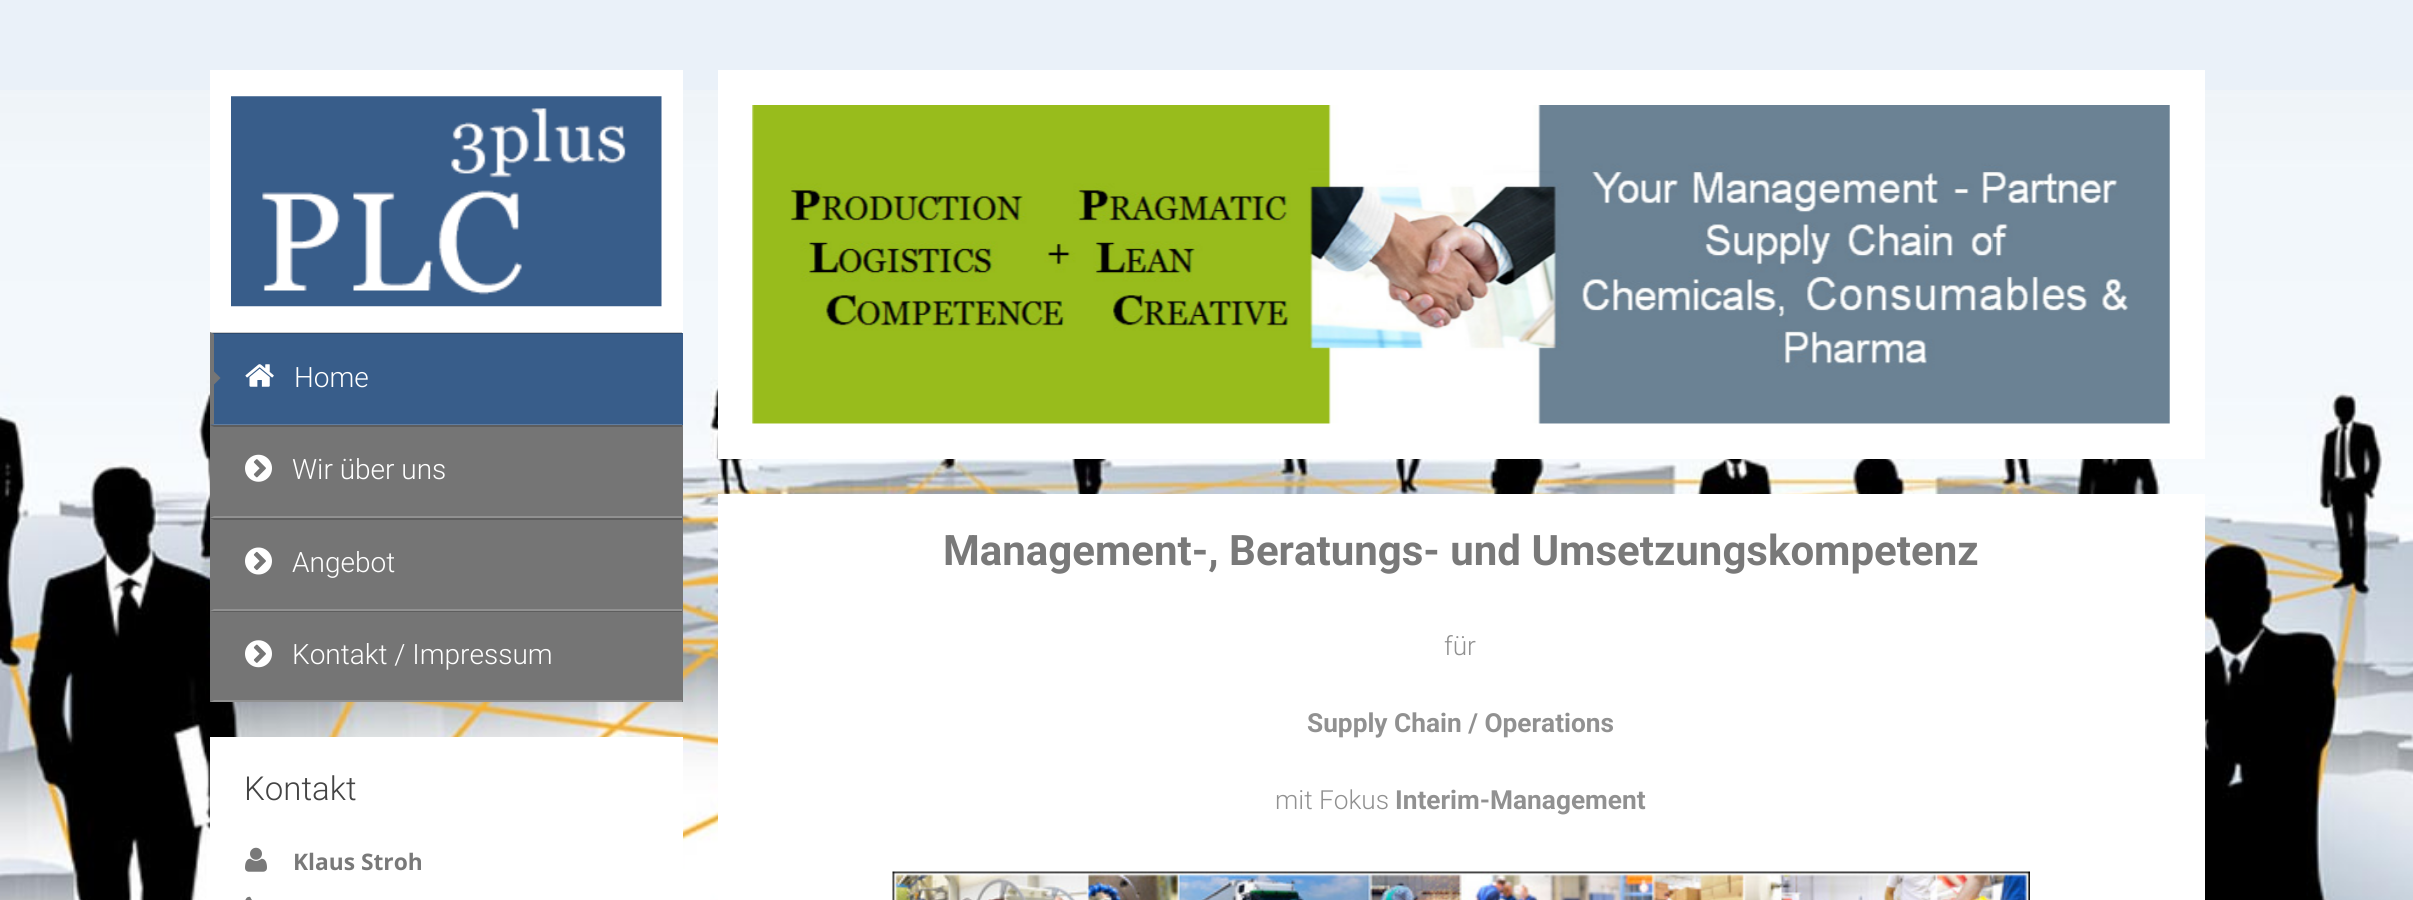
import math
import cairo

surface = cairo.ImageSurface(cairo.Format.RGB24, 2413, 900)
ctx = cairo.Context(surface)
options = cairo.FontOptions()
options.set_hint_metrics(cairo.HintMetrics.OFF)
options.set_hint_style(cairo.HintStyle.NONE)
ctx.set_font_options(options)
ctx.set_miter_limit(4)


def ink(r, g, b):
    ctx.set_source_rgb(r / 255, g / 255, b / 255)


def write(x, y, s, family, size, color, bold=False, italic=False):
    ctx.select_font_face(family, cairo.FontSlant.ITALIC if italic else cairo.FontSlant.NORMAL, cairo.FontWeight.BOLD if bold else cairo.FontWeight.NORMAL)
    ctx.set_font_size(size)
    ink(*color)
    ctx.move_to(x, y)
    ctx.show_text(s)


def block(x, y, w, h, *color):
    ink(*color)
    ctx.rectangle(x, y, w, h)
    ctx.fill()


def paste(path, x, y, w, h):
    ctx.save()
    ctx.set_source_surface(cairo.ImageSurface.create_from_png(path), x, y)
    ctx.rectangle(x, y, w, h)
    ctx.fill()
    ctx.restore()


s1 = dict(family="Roboto Light", size=28, color=(255, 255, 255))
s2 = dict(family="Roboto Light", size=33, color=(68, 68, 68))
s3 = dict(family="Open Sans", size=22.75, color=(121, 121, 121), bold=True)
s4 = dict(family="Roboto", size=42, color=(121, 121, 121), bold=True)
s5 = dict(family="Roboto Light", size=26.25, color=(145, 145, 145))
s6 = dict(family="Roboto", size=26.25, color=(145, 145, 145), bold=True)

ink(234, 241, 249)
ctx.paint()
paste("pic1.png", 0, 90, 2413, 810)
block(210, 70, 473, 263, 255, 255, 255)
paste("pic2.png", 231, 96, 431, 211)
block(210, 333, 473, 92, 56, 93, 138)
ctx.set_source_rgba(0, 0, 0, 0.2)
ctx.new_path()
ctx.move_to(210, 332)
ctx.line_to(682, 332)
ctx.line_to(682, 334)
ctx.line_to(214, 334)
ctx.close_path()
ctx.fill()
ink(96, 125, 161)
ctx.new_path()
ctx.move_to(682, 425)
ctx.line_to(210, 425)
ctx.line_to(214, 424)
ctx.line_to(682, 424)
ctx.close_path()
ctx.fill()
ink(117, 117, 117)
ctx.new_path()
ctx.move_to(210, 425)
ctx.line_to(210, 332)
ctx.line_to(214, 334)
ctx.line_to(214, 424)
ctx.close_path()
ctx.fill()
ctx.new_path()
ctx.move_to(213.5, 385)
ctx.line_to(213.5, 371)
ctx.line_to(220.5, 378)
ctx.close_path()
ctx.fill()
paste("pic3.png", 245, 364, 29, 23)
write(294, 387, "Home", **s1)
block(210, 425, 473, 277, 117, 117, 117)
ink(94, 94, 94)
ctx.new_path()
ctx.move_to(210, 425)
ctx.line_to(682, 425)
ctx.line_to(682, 427)
ctx.line_to(214, 427)
ctx.close_path()
ctx.fill()
ink(145, 145, 145)
ctx.new_path()
ctx.move_to(682, 518)
ctx.line_to(210, 518)
ctx.line_to(214, 516)
ctx.line_to(682, 516)
ctx.close_path()
ctx.fill()
paste("pic4.png", 245, 454, 27, 28)
write(292, 479, "Wir über uns", **s1)
ink(94, 94, 94)
ctx.new_path()
ctx.move_to(210, 518)
ctx.line_to(682, 518)
ctx.line_to(682, 520)
ctx.line_to(214, 520)
ctx.close_path()
ctx.fill()
ink(145, 145, 145)
ctx.new_path()
ctx.move_to(682, 611)
ctx.line_to(210, 611)
ctx.line_to(214, 609)
ctx.line_to(682, 609)
ctx.close_path()
ctx.fill()
paste("pic5.png", 245, 547, 27, 28)
write(292, 572, "Angebot", **s1)
ink(94, 94, 94)
ctx.new_path()
ctx.move_to(210, 611)
ctx.line_to(682, 611)
ctx.line_to(682, 612)
ctx.line_to(214, 612)
ctx.close_path()
ctx.fill()
ink(145, 145, 145)
ctx.new_path()
ctx.move_to(682, 702)
ctx.line_to(210, 702)
ctx.line_to(214, 700)
ctx.line_to(682, 700)
ctx.close_path()
ctx.fill()
paste("pic6.png", 245, 640, 27, 28)
write(292, 664, "Kontakt / Impressum", **s1)
block(210, 737, 473, 163, 255, 255, 255)
write(244, 800, "Kontakt", **s2)
paste("pic7.png", 245, 847, 22, 25)
write(293, 870, "Klaus Stroh", **s3)
paste("pic8.png", 245, 896, 7, 4)
block(718, 70, 1487, 389, 255, 255, 255)
paste("pic9.png", 752, 105, 1418, 319)
block(718, 494, 1487, 406, 255, 255, 255)
write(943, 565, "Management-, Beratungs- und Umsetzungskompetenz", **s4)
write(1444, 655, "für", **s5)
write(1307, 732, "Supply Chain / Operations", **s6)
write(1275, 809, "mit Fokus", **s5)
write(1395, 809, "Interim-Management", **s6)
paste("pic10.png", 892, 871, 1138, 29)
surface.write_to_png("screenshot.png")
